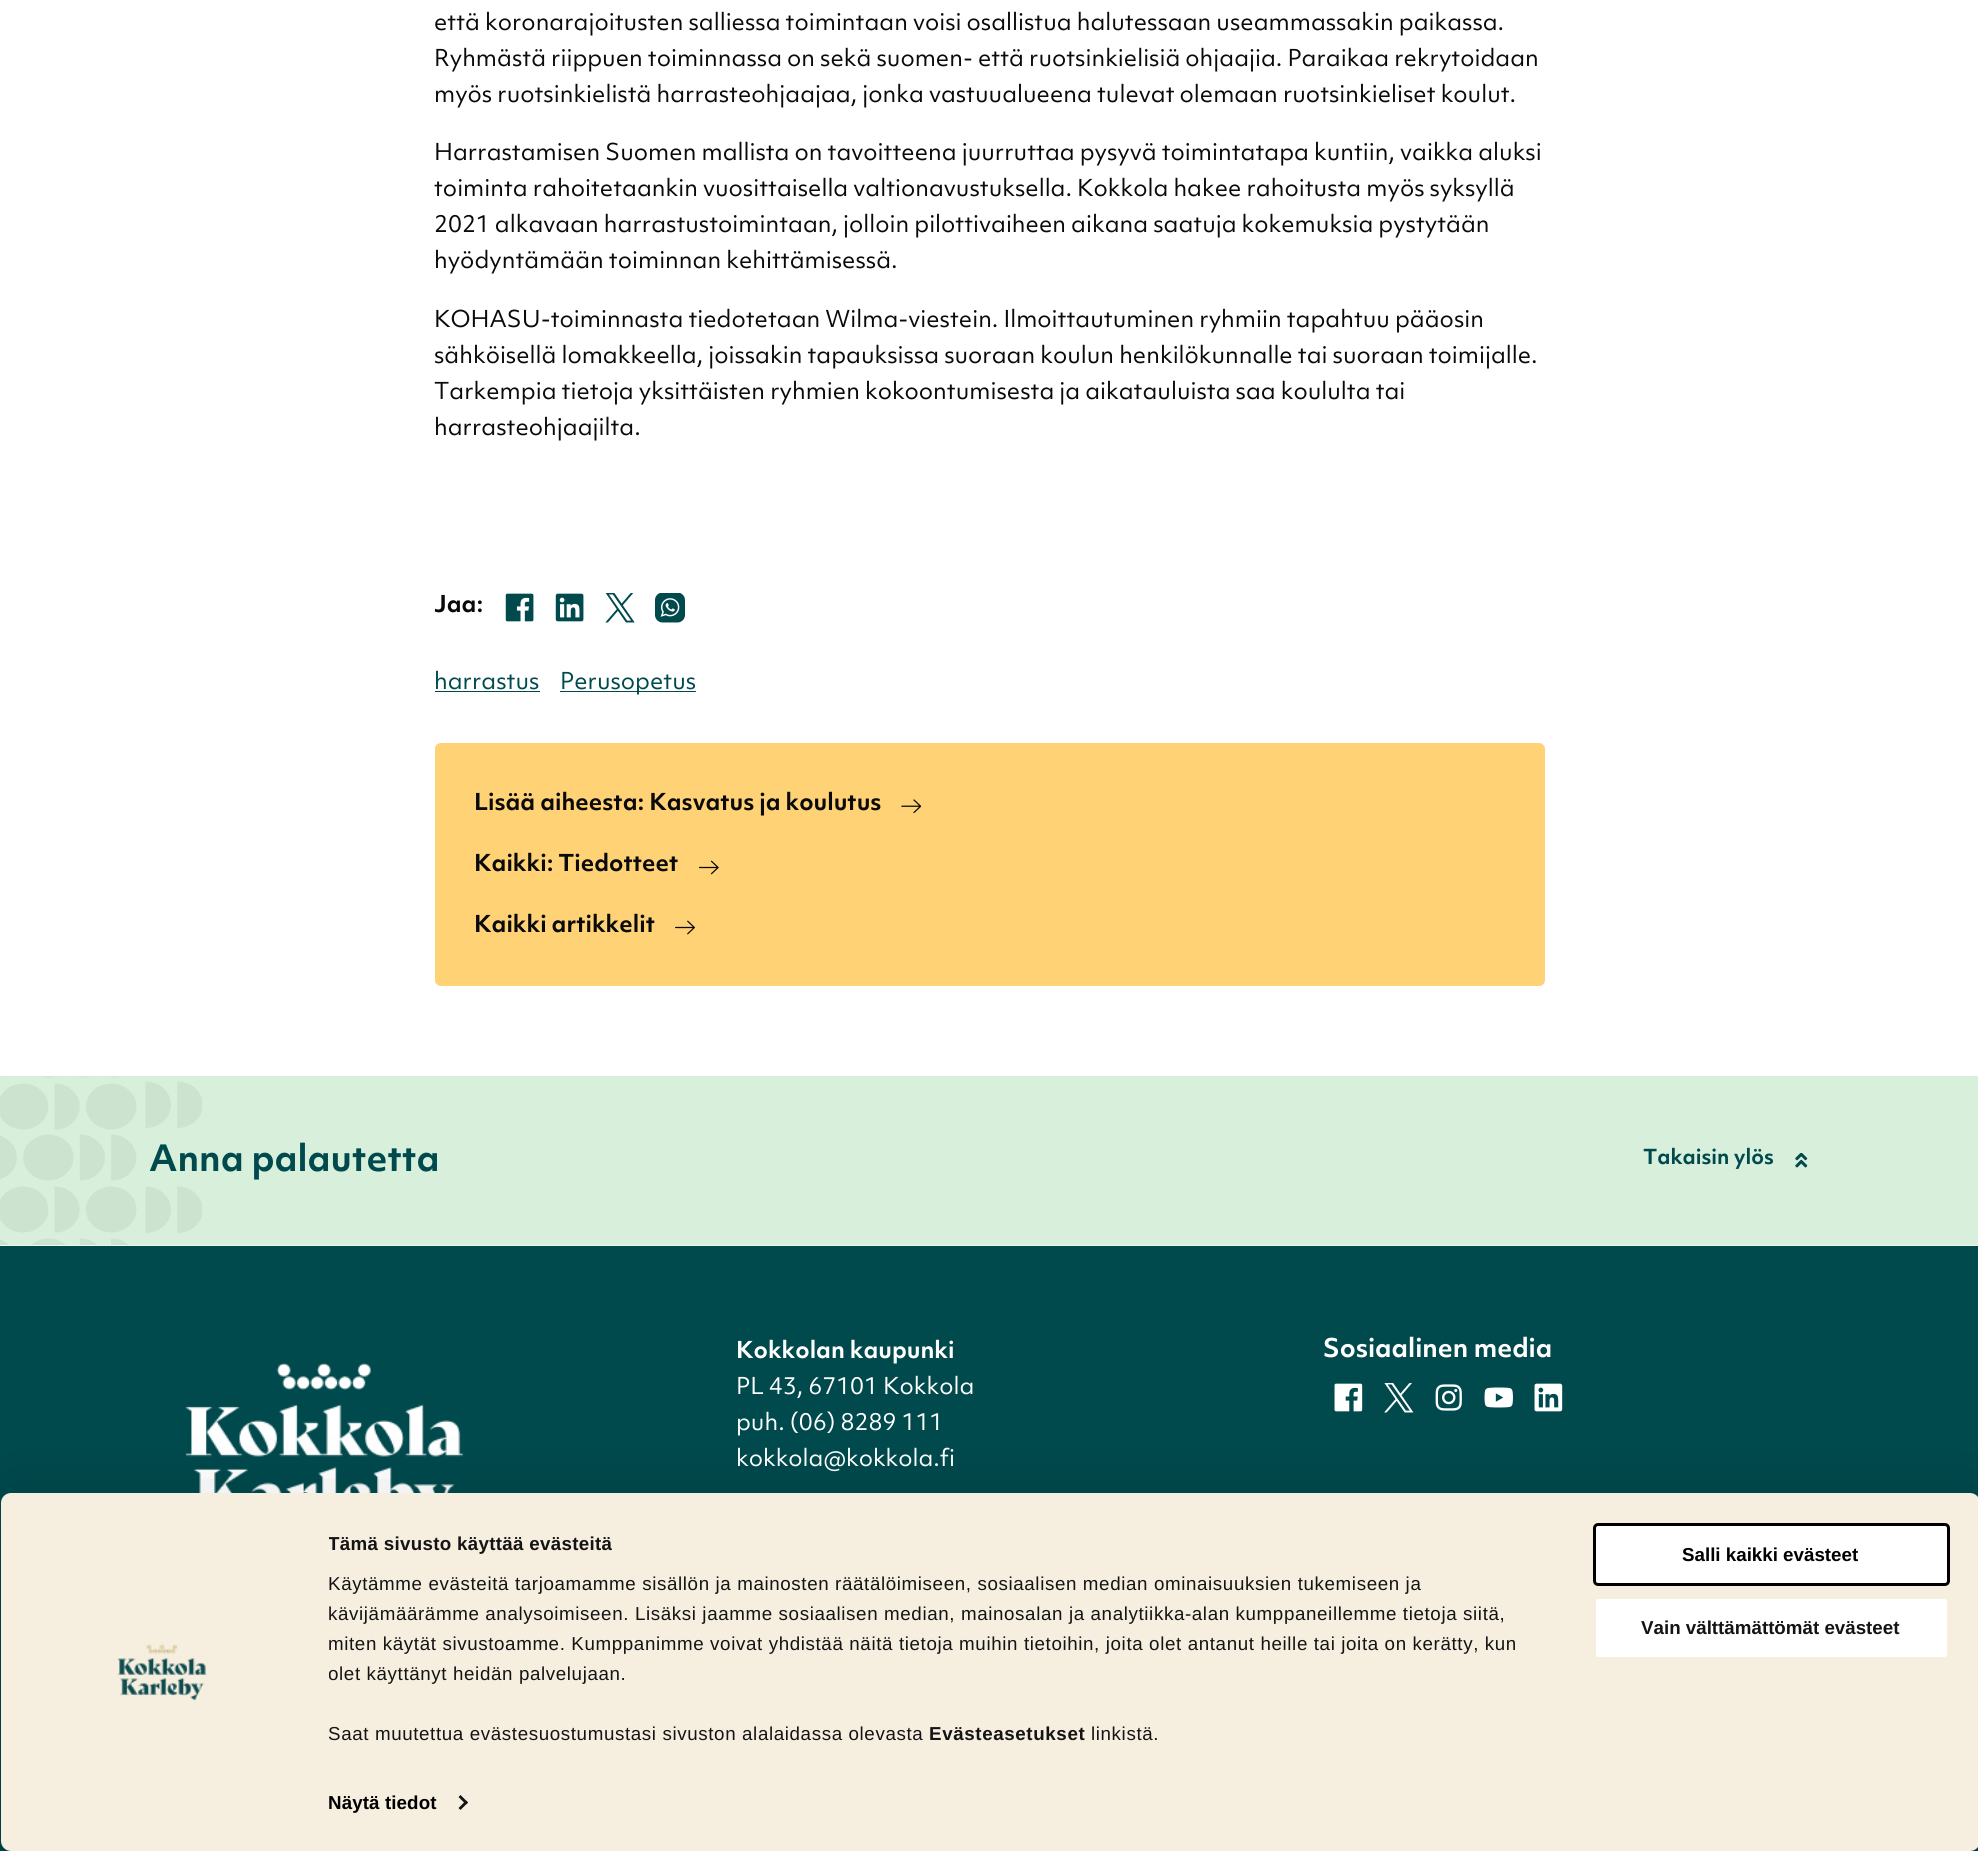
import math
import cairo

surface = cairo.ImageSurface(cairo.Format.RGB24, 1978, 1851)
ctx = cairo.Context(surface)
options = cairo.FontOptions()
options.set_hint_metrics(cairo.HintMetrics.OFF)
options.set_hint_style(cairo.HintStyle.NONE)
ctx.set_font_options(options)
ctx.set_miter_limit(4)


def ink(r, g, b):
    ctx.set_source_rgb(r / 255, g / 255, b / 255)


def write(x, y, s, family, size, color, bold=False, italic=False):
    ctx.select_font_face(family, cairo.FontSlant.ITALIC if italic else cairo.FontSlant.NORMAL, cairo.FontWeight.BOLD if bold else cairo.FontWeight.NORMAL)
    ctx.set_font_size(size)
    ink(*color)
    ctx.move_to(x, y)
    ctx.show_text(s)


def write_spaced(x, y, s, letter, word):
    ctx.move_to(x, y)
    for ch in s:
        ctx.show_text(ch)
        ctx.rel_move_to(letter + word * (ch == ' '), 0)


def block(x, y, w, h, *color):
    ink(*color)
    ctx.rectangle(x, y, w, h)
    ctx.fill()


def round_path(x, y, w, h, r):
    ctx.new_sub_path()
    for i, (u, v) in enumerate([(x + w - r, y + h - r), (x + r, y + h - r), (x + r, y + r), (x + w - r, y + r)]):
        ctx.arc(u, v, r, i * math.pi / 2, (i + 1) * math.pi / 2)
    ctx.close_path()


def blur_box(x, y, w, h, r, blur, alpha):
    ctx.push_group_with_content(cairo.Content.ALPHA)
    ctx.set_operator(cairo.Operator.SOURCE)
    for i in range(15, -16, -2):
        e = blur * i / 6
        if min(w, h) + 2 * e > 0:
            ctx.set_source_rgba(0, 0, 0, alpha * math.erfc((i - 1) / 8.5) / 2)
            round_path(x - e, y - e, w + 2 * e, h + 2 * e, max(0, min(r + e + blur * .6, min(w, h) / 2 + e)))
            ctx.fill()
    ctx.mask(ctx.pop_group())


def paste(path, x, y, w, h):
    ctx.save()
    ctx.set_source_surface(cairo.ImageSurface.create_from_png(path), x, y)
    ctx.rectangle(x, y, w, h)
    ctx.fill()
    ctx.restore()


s1 = dict(family="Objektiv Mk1", size=22.5, color=(10, 10, 10))
s2 = dict(family="Objektiv Mk1", size=22.5, color=(10, 10, 10), bold=True)
s3 = dict(family="Objektiv Mk1", size=22.5, color=(0, 73, 77))
s4 = dict(family="Objektiv Mk1", size=35, color=(0, 73, 77), bold=True)
s5 = dict(family="Objektiv Mk1", size=20, color=(0, 73, 77), bold=True)
s6 = dict(family="Objektiv Mk1", size=22.5, color=(255, 255, 255), bold=True)
s7 = dict(family="Objektiv Mk1", size=22.5, color=(255, 255, 255))
s8 = dict(family="Objektiv Mk1", size=25, color=(255, 255, 255), bold=True)
s9 = dict(family="Liberation Sans", size=18.75, color=(0, 0, 0), bold=True)
s10 = dict(family="Liberation Sans", size=18.75, color=(20, 20, 20), bold=True)

ink(255, 255, 255)
ctx.paint()
write(434, 30, "että koronarajoitusten salliessa toimintaan voisi osallistua halutessaan useammassakin paikassa.", **s1)
write(434, 66, "Ryhmästä riippuen toiminnassa on sekä suomen- että ruotsinkielisiä ohjaajia. Paraikaa rekrytoidaan", **s1)
write(434, 102, "myös ruotsinkielistä harrasteohjaajaa, jonka vastuualueena tulevat olemaan ruotsinkieliset koulut.", **s1)
write(434, 160, "Harrastamisen Suomen mallista on tavoitteena juurruttaa pysyvä toimintatapa kuntiin, vaikka aluksi", **s1)
write(434, 196, "toiminta rahoitetaankin vuosittaisella valtionavustuksella. Kokkola hakee rahoitusta myös syksyllä", **s1)
write(434, 232, "2021 alkavaan harrastustoimintaan, jolloin pilottivaiheen aikana saatuja kokemuksia pystytään", **s1)
write(434, 268, "hyödyntämään toiminnan kehittämisessä.", **s1)
write(434, 327, "KOHASU-toiminnasta tiedotetaan Wilma-viestein. Ilmoittautuminen ryhmiin tapahtuu pääosin", **s1)
write(434, 363, "sähköisellä lomakkeella, joissakin tapauksissa suoraan koulun henkilökunnalle tai suoraan toimijalle.", **s1)
write(434, 399, "Tarkempia tietoja yksittäisten ryhmien kokoontumisesta ja aikatauluista saa koululta tai", **s1)
write(434, 435, "harrasteohjaajilta.", **s1)
write(434, 612, "Jaa:", **s2)
paste("pic1.png", 505, 593, 29, 29)
paste("pic2.png", 555, 593, 29, 29)
paste("pic3.png", 605, 593, 30, 30)
paste("pic4.png", 655, 593, 30, 30)
write(434, 689, "harrastus", **s3)
block(435, 691, 105, 1, 0, 73, 77)
block(560, 691, 136, 1, 0, 73, 77)
write(560, 689, "Perusopetus", **s3)
ink(255, 211, 117)
round_path(435, 743, 1110, 243, 6)
ctx.fill()
write(474, 810, "Lisää aiheesta: Kasvatus ja koulutus", **s2)
paste("pic5.png", 901, 799, 20, 15)
write(474, 871, "Kaikki: Tiedotteet", **s2)
paste("pic6.png", 699, 860, 20, 15)
write(474, 932, "Kaikki artikkelit", **s2)
paste("pic7.png", 675, 920, 20, 15)
block(0, 1246, 1978, 605, 0, 73, 77)
block(0, 1076, 1978, 169, 215, 239, 219)
paste("pic8.png", 0, 1076, 137, 169)
write(149, 1171, "Anna palautetta", **s4)
paste("pic9.png", 145, 1081, 57, 152)
write(1643, 1164, "Takaisin ylös", **s5)
paste("pic10.png", 1795, 1153, 13, 15)
block(0, 1245, 1978, 1, 242, 242, 242)
paste("pic11.png", 185, 1363, 279, 130)
write(736, 1358, "Kokkolan kaupunki", **s6)
write(736, 1394, "PL 43, 67101 Kokkola", **s7)
write(736, 1430, "puh. (06) 8289 111", **s7)
write(736, 1466, "kokkola@kokkola.fi", **s7)
write(1323, 1357, "Sosiaalinen media", **s8)
paste("pic12.png", 1334, 1383, 29, 29)
paste("pic13.png", 1384, 1383, 30, 30)
paste("pic14.png", 1435, 1384, 27, 27)
paste("pic15.png", 1484, 1387, 29, 21)
paste("pic16.png", 1534, 1383, 29, 29)
ink(0, 0, 0)
blur_box(1, 1530, 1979, 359, 10, 44, 0.3)
ink(246, 238, 223)
round_path(1, 1493, 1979, 358, 10)
ctx.fill()
ctx.save()
ctx.rectangle(329, 1530, 1227, 219)
ctx.clip()
ctx.select_font_face("Liberation Sans", cairo.FontSlant.NORMAL, cairo.FontWeight.BOLD)
ctx.set_font_size(18.75)
ink(20, 20, 20)
write_spaced(328, 1550, "Tämä sivusto käyttää evästeitä", 0.3, 0)
ctx.restore()
ctx.select_font_face("Liberation Sans")
ctx.set_font_size(18.75)
ink(20, 20, 20)
write_spaced(328, 1590, "Käytämme evästeitä tarjoamamme sisällön ja mainosten räätälöimiseen, sosiaalisen median ominaisuuksien tukemiseen ja", 0.62, 0)
ctx.save()
ctx.rectangle(329, 1530, 1227, 219)
ctx.clip()
write_spaced(328, 1620, "kävijämäärämme analysoimiseen. Lisäksi jaamme sosiaalisen median, mainosalan ja analytiikka-alan kumppaneillemme tietoja siitä,", 0.62, 0)
ctx.restore()
write_spaced(328, 1650, "miten käytät sivustoamme. Kumppanimme voivat yhdistää näitä tietoja muihin tietoihin, joita olet antanut heille tai joita on kerätty, kun", 0.62, 0)
ctx.save()
ctx.rectangle(329, 1530, 1227, 219)
ctx.clip()
write_spaced(328, 1680, "olet käyttänyt heidän palvelujaan.", 0.62, 0)
ctx.restore()
write_spaced(328, 1740, "Saat muutettua evästesuostumustasi sivuston alalaidassa olevasta", 0.62, 0)
ctx.select_font_face("Liberation Sans", cairo.FontSlant.NORMAL, cairo.FontWeight.BOLD)
write_spaced(929, 1740, "Evästeasetukset", 0.62, 0)
ctx.select_font_face("Liberation Sans")
write_spaced(1091, 1740, "linkistä.", 0.62, 0)
ctx.select_font_face("Liberation Sans", cairo.FontSlant.NORMAL, cairo.FontWeight.BOLD)
ink(0, 0, 0)
write_spaced(328, 1809, "Näytä tiedot", 0.1, 0)
ink(20, 20, 20)
ctx.new_path()
ctx.move_to(460.5, 1795)
ctx.line_to(468, 1802.5)
ctx.line_to(466, 1804.5)
ctx.line_to(458.5, 1797)
ctx.close_path()
ctx.fill()
ctx.new_path()
ctx.move_to(466, 1800.5)
ctx.line_to(468, 1802.5)
ctx.line_to(460.5, 1810)
ctx.line_to(458.5, 1808)
ctx.close_path()
ctx.fill()
ink(255, 255, 255)
round_path(1594.5, 1524.5, 354, 60, 3.5)
ctx.fill_preserve()
ink(0, 0, 0)
ctx.set_line_width(3)
ctx.stroke()
write(1682, 1561, "Salli kaikki evästeet", **s9)
ink(255, 255, 255)
round_path(1594.5, 1597.5, 354, 61, 3.5)
ctx.fill_preserve()
ink(246, 238, 223)
ctx.stroke()
write(1641, 1634, "Vain välttämättömät evästeet", **s10)
paste("pic17.png", 117, 1644, 90, 57)
surface.write_to_png("screenshot.png")
